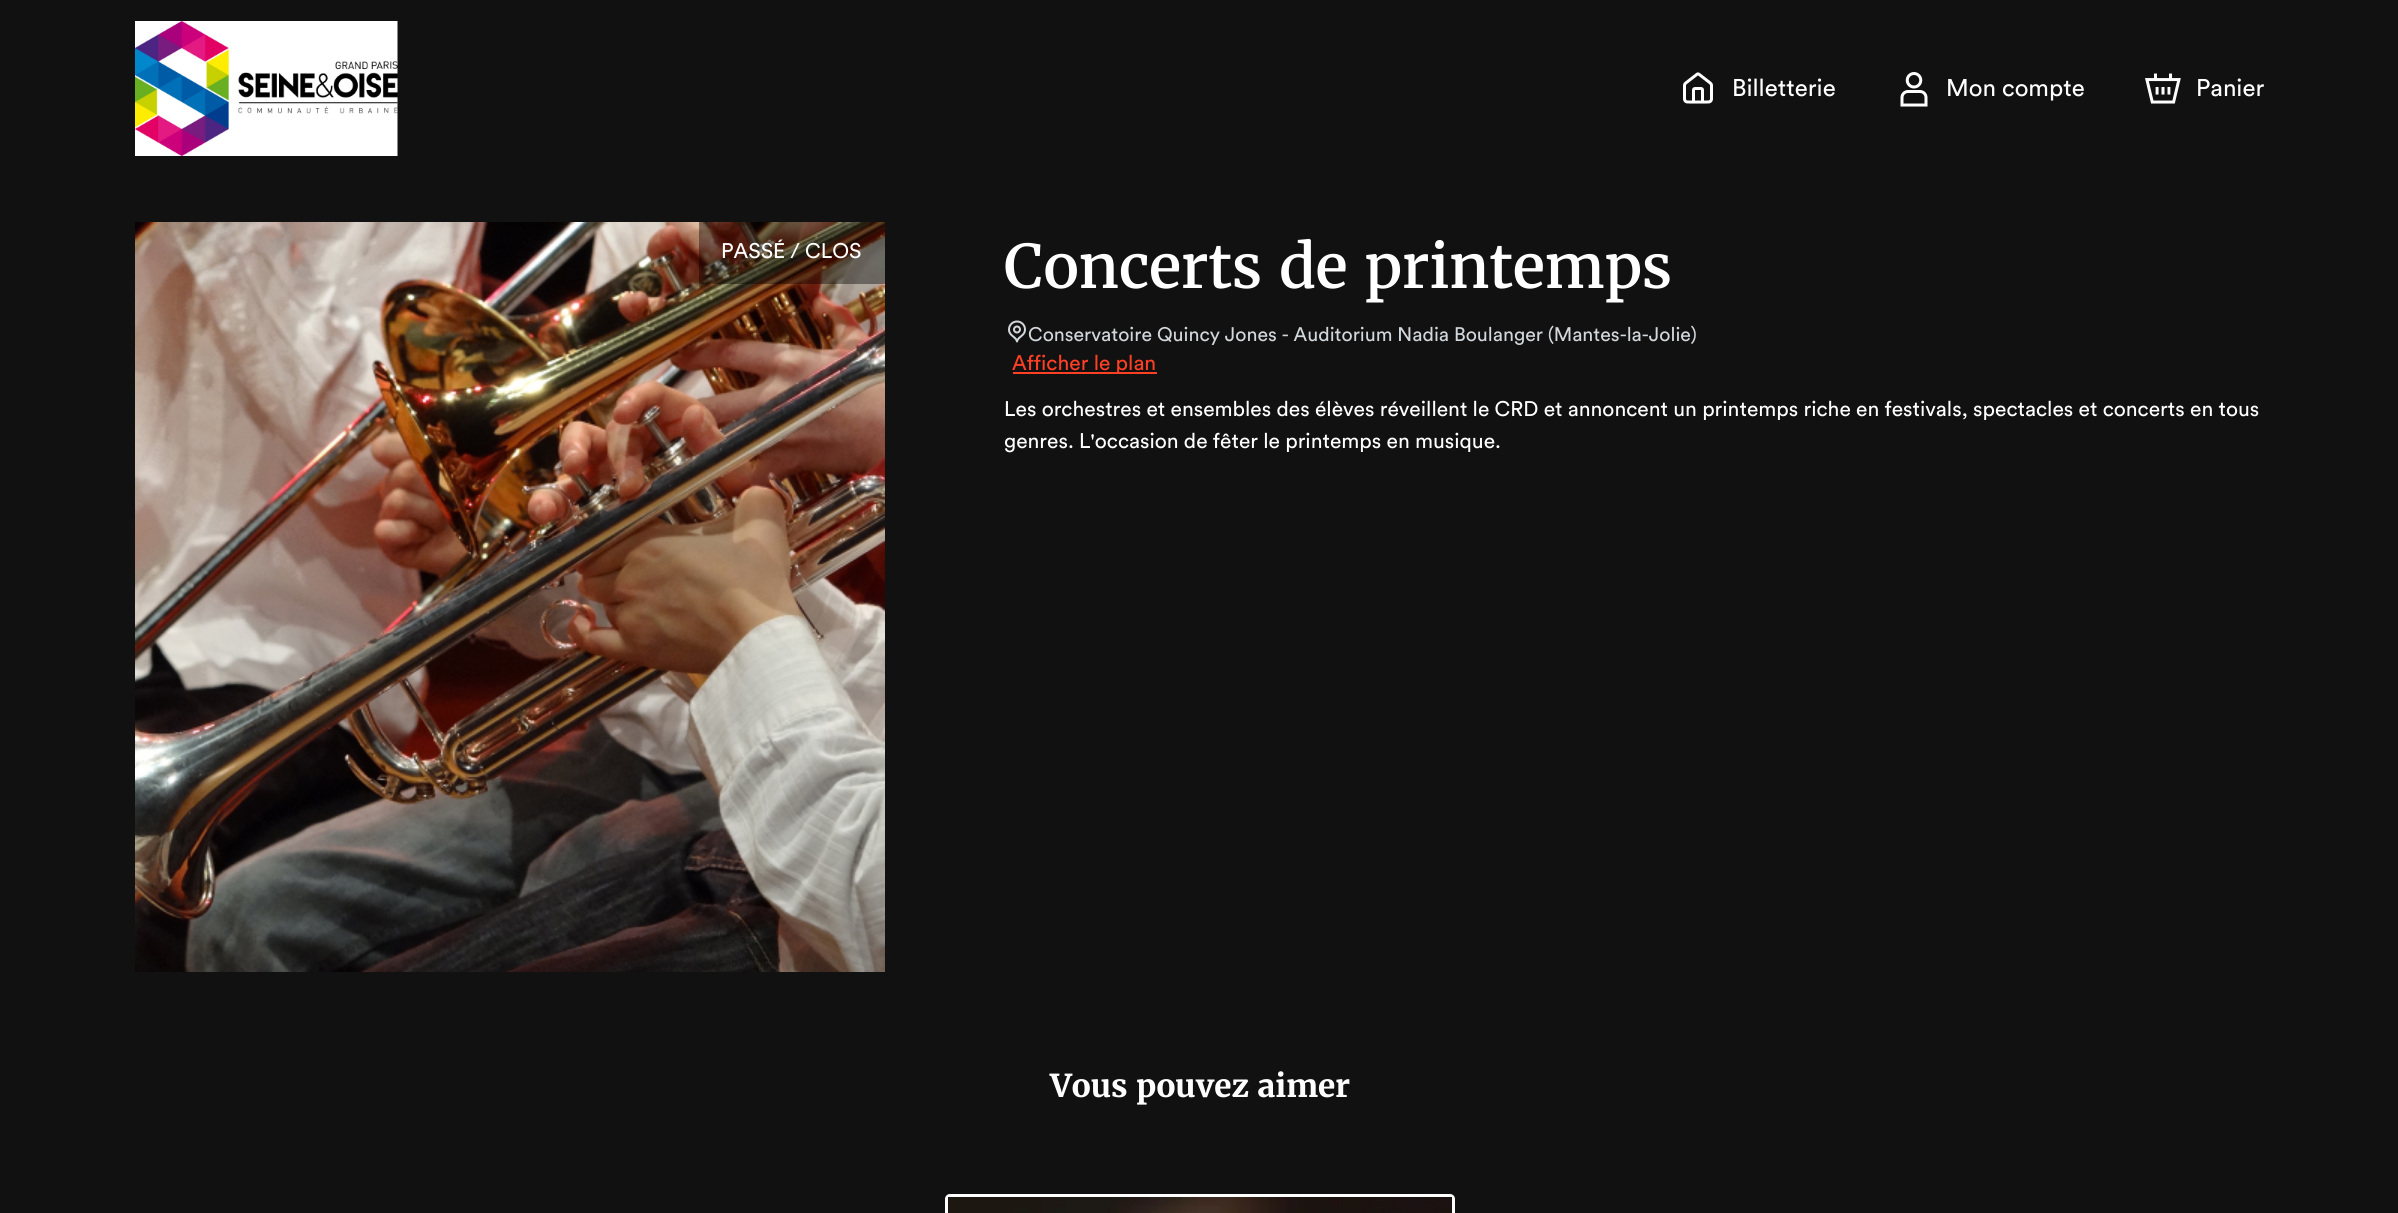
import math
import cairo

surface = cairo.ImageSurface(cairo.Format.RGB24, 2398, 1213)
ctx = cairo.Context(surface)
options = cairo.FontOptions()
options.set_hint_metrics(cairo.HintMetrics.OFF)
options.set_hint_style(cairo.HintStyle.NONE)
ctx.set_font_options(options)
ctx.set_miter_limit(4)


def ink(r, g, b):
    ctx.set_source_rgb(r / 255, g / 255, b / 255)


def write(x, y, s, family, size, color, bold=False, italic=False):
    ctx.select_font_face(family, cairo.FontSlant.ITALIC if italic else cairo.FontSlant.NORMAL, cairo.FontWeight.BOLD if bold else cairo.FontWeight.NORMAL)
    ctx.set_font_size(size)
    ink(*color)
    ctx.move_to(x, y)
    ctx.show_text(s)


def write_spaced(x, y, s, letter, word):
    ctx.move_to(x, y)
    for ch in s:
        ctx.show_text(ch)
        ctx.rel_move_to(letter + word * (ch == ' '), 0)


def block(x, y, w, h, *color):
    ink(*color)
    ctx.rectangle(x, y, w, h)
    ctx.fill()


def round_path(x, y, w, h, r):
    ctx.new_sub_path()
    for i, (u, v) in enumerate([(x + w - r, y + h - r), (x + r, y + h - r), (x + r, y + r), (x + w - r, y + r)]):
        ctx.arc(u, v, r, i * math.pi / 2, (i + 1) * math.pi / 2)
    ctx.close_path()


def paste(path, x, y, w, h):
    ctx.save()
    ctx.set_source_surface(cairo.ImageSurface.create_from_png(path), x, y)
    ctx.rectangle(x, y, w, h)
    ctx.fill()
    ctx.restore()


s1 = dict(family="Circular", size=24, color=(255, 255, 255))
s2 = dict(family="Circular", size=21, color=(255, 255, 255))
s3 = dict(family="Circular", size=19.5, color=(210, 215, 220))
s4 = dict(family="Circular", size=21, color=(255, 64, 36))

ink(17, 17, 17)
ctx.paint()
paste("pic1.png", 135, 21, 263, 135)
paste("pic2.png", 1683, 72, 30, 32)
write(1732, 96, "Billetterie", **s1)
paste("pic3.png", 1900, 72, 28, 35)
write(1946, 96, "Mon compte", **s1)
paste("pic4.png", 2145, 73, 36, 31)
write(2196, 96, "Panier", **s1)
paste("pic5.png", 135, 222, 750, 750)
ctx.set_source_rgba(0, 0, 0, 0.4)
ctx.rectangle(699, 222, 186, 62)
ctx.fill()
write(721, 258, "PASSÉ / CLOS", **s2)
ctx.select_font_face("Merriweather SemiBold")
ctx.set_font_size(60)
write_spaced(1004, 288, "Concerts de printemps", 0, 3)
paste("pic6.png", 1008, 320, 18, 23)
write(1028, 341, "Conservatoire Quincy Jones - Auditorium Nadia Boulanger (Mantes-la-Jolie)", **s3)
block(1013, 372, 144, 2, 255, 64, 36)
write(1012, 370, "Afficher le plan", **s4)
write(1004, 416, "Les orchestres et ensembles des élèves réveillent le CRD et annoncent un printemps riche en festivals, spectacles et concerts en tous", **s2)
write(1004, 448, "genres. L'occasion de fêter le printemps en musique.", **s2)
ctx.select_font_face("Merriweather ExtraBold")
ctx.set_font_size(31.5)
write_spaced(1050, 1097, "Vous pouvez aimer", 0, 1)
round_path(945, 1194, 510, 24, 5)
ctx.fill()
paste("pic7.png", 948, 1197, 504, 16)
surface.write_to_png("screenshot.png")
